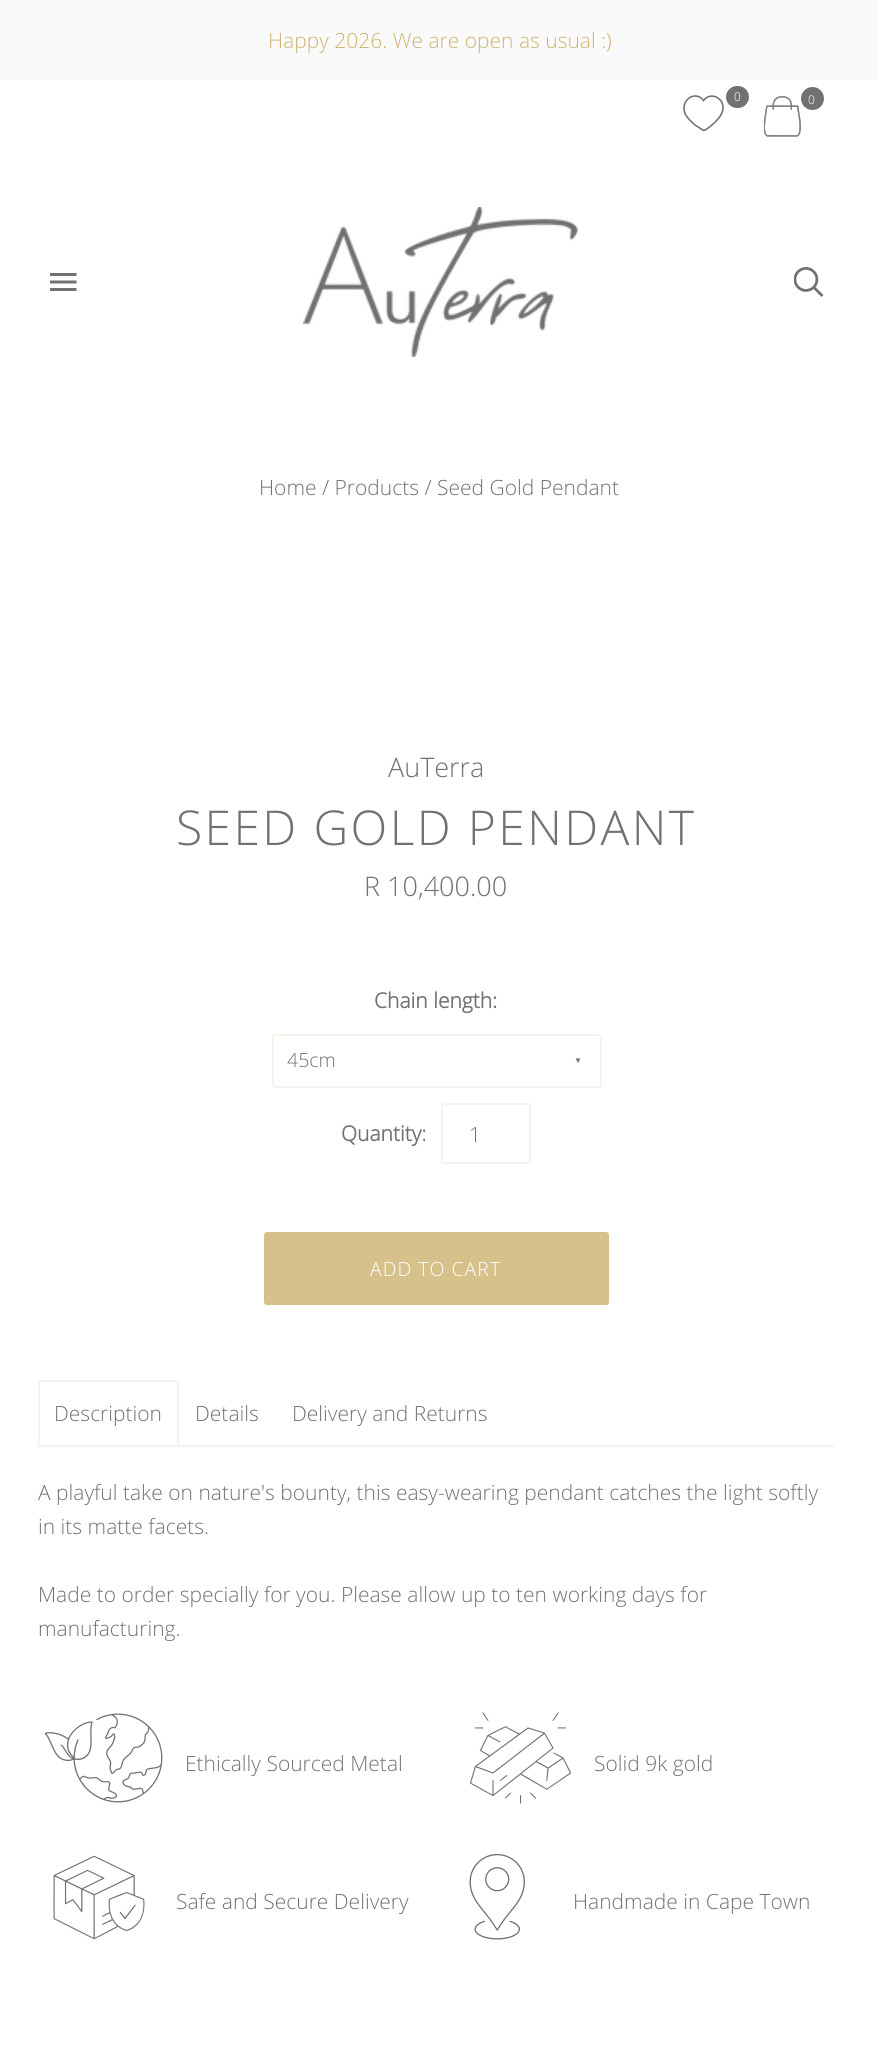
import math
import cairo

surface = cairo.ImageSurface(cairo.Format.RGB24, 879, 2064)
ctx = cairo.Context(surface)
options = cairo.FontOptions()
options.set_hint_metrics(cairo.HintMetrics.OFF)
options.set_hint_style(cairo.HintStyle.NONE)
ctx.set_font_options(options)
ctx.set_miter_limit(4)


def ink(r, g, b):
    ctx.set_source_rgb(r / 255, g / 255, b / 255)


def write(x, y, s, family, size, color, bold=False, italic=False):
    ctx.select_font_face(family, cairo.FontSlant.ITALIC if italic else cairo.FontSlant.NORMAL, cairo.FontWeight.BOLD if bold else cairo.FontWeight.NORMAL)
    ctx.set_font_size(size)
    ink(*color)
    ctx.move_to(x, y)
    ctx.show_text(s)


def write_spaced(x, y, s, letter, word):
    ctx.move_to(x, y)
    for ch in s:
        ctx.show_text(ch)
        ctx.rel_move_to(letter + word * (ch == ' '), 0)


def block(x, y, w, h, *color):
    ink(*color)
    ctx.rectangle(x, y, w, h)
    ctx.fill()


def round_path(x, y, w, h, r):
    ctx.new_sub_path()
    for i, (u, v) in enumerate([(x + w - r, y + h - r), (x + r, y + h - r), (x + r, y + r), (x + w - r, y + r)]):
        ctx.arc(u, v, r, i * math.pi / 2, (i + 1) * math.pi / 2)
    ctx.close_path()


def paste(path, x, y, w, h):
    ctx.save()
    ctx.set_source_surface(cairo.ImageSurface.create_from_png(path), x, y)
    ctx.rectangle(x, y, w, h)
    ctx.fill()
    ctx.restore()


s1 = dict(family="Open Sans Light", size=21, color=(205, 181, 114))
s2 = dict(family="Open Sans Light", size=12, color=(255, 255, 255))
s3 = dict(family="Open Sans Light", size=21, color=(113, 113, 113))
s4 = dict(family="Open Sans Light", size=27, color=(113, 113, 113))
s5 = dict(family="Open Sans", size=21, color=(113, 113, 113), bold=True)
s6 = dict(family="Open Sans Light", size=19.5, color=(113, 113, 113))
s7 = dict(family="Liberation Serif", size=8, color=(113, 113, 113))

ink(255, 255, 255)
ctx.paint()
block(0, 0, 879, 80, 250, 250, 250)
write(268, 48, "Happy 2026. We are open as usual :)", **s1)
ctx.new_path()
ctx.move_to(703.5, 130.5)
ctx.line_to(695, 125)
ctx.curve_to(691, 121.5, 686, 117, 684.5, 112)
ctx.curve_to(681, 99.5, 695.5, 90, 703.5, 100.5)
ctx.curve_to(711, 90.5, 726, 99, 722.5, 111)
ctx.curve_to(721, 116.5, 716.5, 121, 712.5, 124.5)
ctx.curve_to(711, 125.5, 706, 130.5, 703.5, 130.5)
ctx.close_path()
ink(113, 113, 113)
ctx.set_line_width(1.6)
ctx.stroke()
round_path(726, 86, 23, 22, 11)
ctx.fill()
write(734, 101, "0", **s2)
paste("pic1.png", 764, 96, 37, 41)
ink(113, 113, 113)
ctx.arc(812.5, 98.5, 11.5, 0, 2 * math.pi)
ctx.fill()
ink(255, 255, 255)
write_spaced(808, 104, "0", 1, 0)
paste("pic2.png", 50, 273, 27, 18)
paste("pic3.png", 303, 207, 275, 150)
paste("pic4.png", 794, 267, 30, 30)
write(259, 495, "Home / Products / Seed Gold Pendant", **s3)
write(388, 777, "AuTerra", **s4)
ctx.set_font_size(48)
write_spaced(176, 845, "SEED GOLD PENDANT", 2.4, 0)
write(364, 896, "R 10,400.00", **s4)
write(374, 1008, "Chain length:", **s5)
round_path(273, 1035, 328, 52, 2)
ink(245, 243, 238)
ctx.set_line_width(2)
ctx.stroke()
write(287, 1067, "45cm", **s6)
write(574, 1063, "▼", **s7)
write(341, 1141, "Quantity:", **s5)
round_path(442, 1104, 88, 59, 2)
ink(245, 243, 238)
ctx.stroke()
write(469, 1142, "1", **s3)
ink(213, 193, 137)
round_path(264, 1232, 345, 73, 3)
ctx.fill()
ctx.set_font_size(19.5)
ink(255, 255, 255)
write_spaced(370, 1276, "ADD TO CART", 1, 0)
block(38, 1380, 141, 2, 245, 243, 238)
block(38, 1445, 796, 2, 245, 243, 238)
block(177, 1380, 2, 66, 245, 243, 238)
block(38, 1380, 2, 66, 245, 243, 238)
write(54, 1421, "Description", **s3)
write(195, 1421, "Details", **s3)
write(292, 1421, "Delivery and Returns", **s3)
write(38, 1500, "A playful take on nature's bounty, this easy-wearing pendant catches the light softly", **s3)
write(38, 1534, "in its matte facets.", **s3)
write(38, 1602, "Made to order specially for you. Please allow up to ten working days for", **s3)
write(38, 1636, "manufacturing.", **s3)
paste("pic5.png", 44, 1713, 119, 90)
write(185, 1771, "Ethically Sourced Metal", **s3)
paste("pic6.png", 469, 1712, 102, 92)
write(594, 1771, "Solid 9k gold", **s3)
paste("pic7.png", 53, 1855, 92, 85)
write(176, 1909, "Safe and Secure Delivery", **s3)
paste("pic8.png", 469, 1854, 56, 86)
write(573, 1909, "Handmade in Cape Town", **s3)
surface.write_to_png("screenshot.png")
